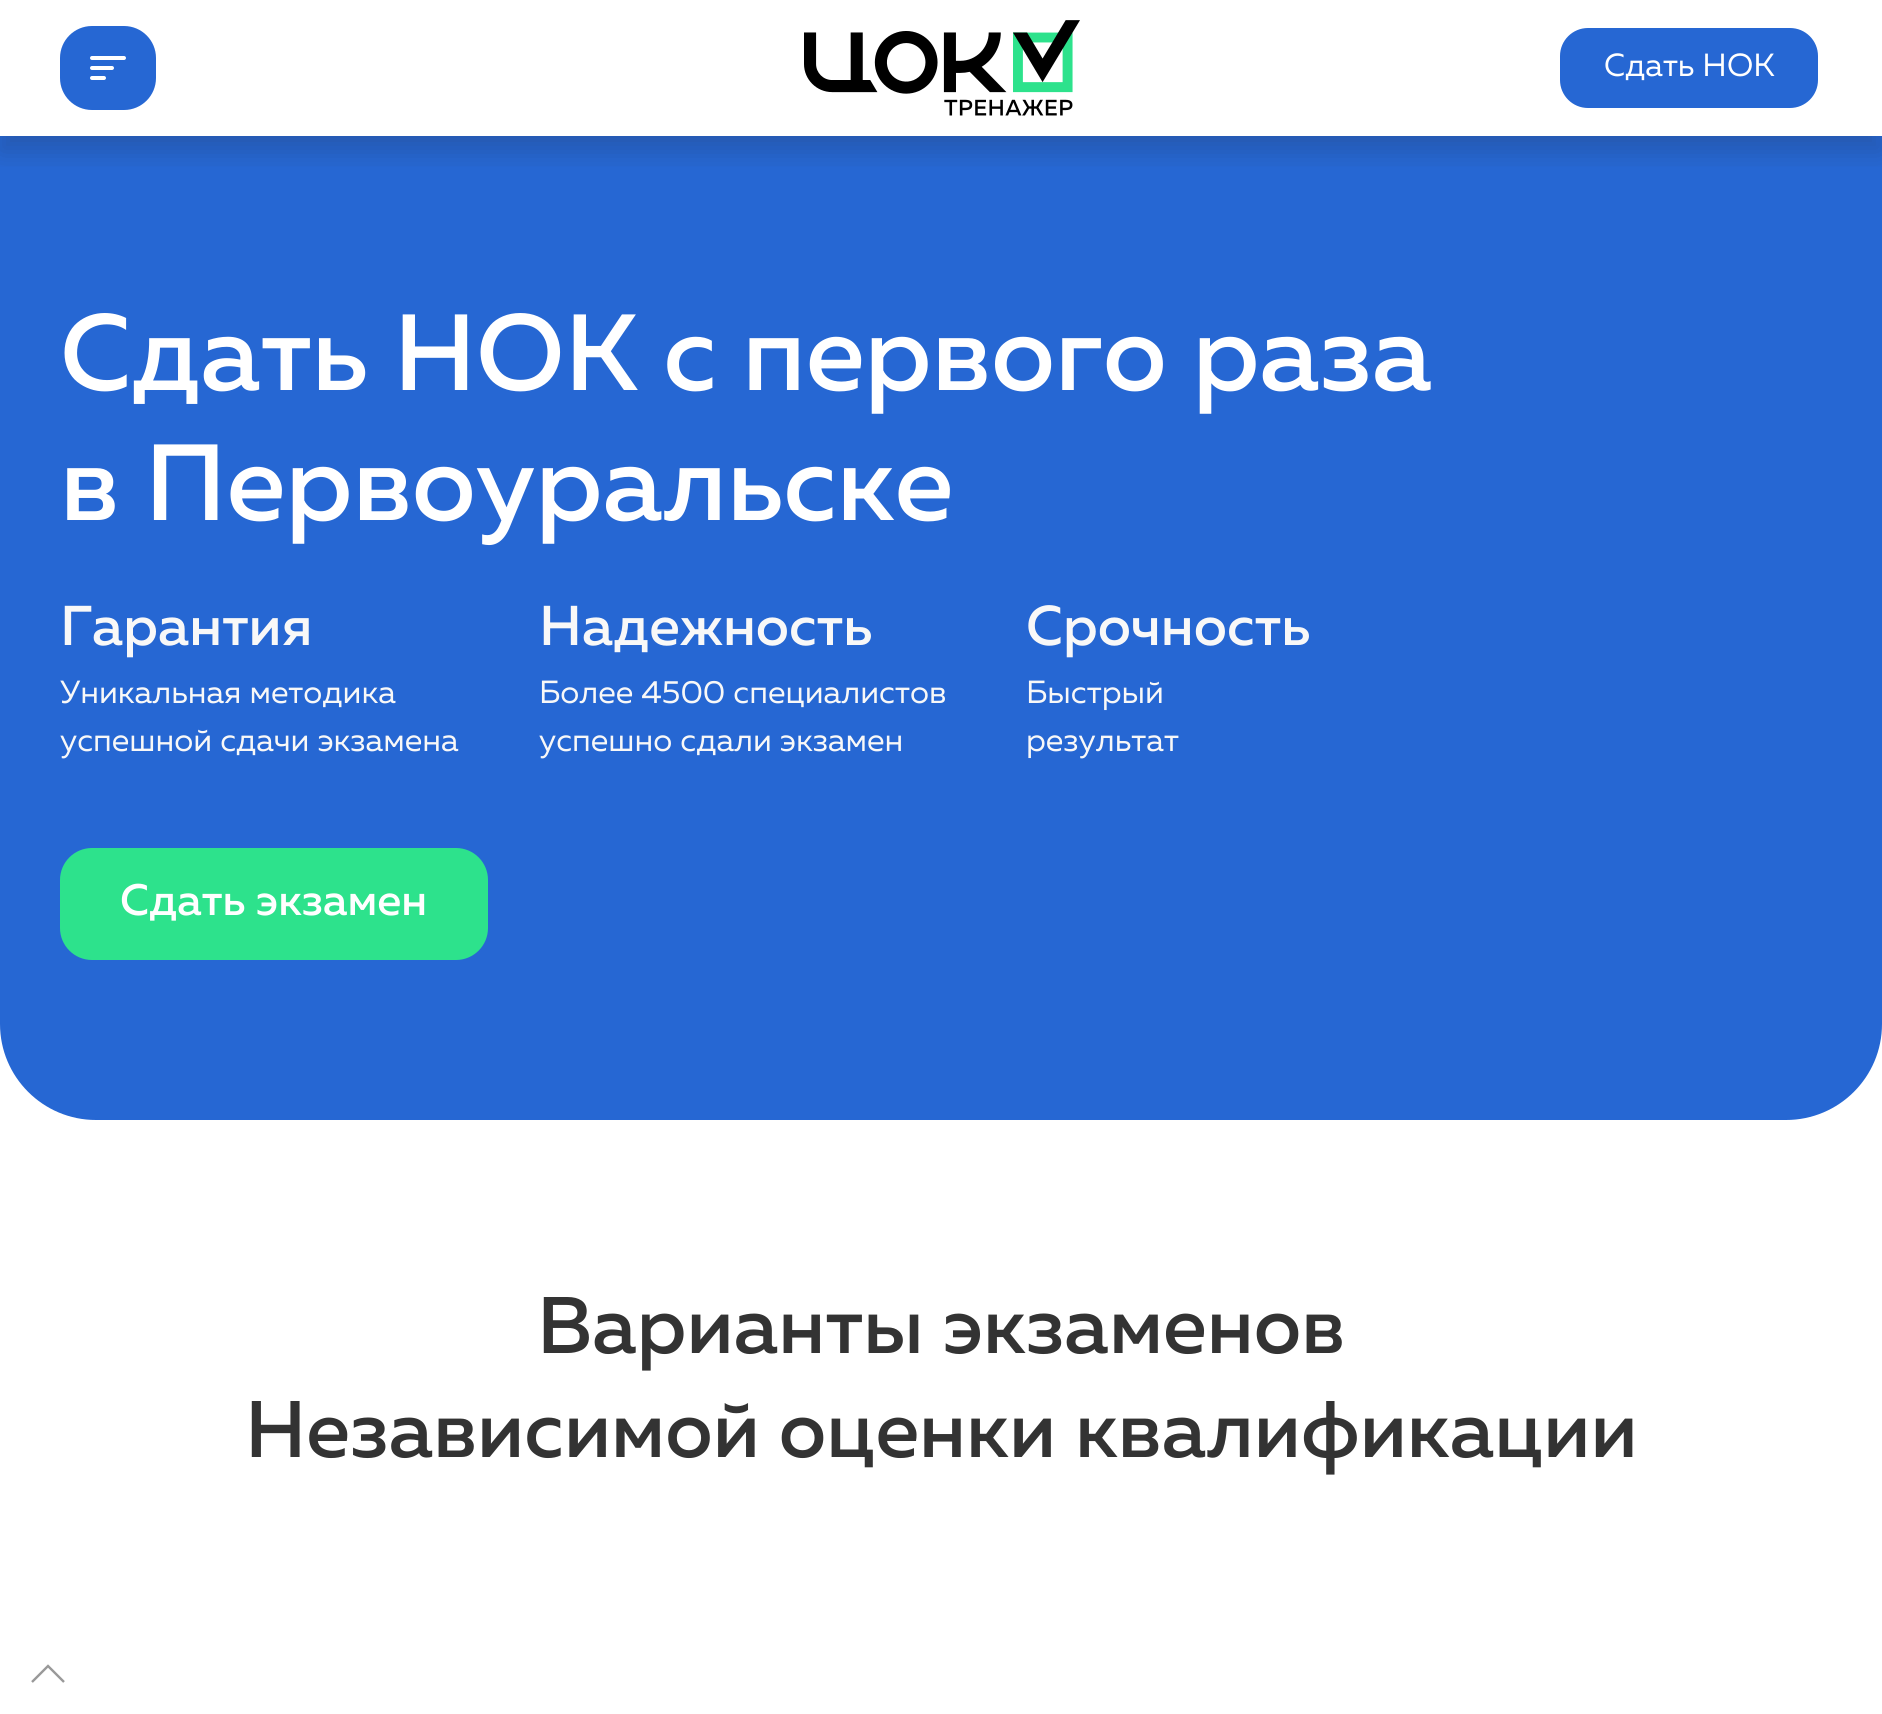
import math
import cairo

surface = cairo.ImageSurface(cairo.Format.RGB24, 1882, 1714)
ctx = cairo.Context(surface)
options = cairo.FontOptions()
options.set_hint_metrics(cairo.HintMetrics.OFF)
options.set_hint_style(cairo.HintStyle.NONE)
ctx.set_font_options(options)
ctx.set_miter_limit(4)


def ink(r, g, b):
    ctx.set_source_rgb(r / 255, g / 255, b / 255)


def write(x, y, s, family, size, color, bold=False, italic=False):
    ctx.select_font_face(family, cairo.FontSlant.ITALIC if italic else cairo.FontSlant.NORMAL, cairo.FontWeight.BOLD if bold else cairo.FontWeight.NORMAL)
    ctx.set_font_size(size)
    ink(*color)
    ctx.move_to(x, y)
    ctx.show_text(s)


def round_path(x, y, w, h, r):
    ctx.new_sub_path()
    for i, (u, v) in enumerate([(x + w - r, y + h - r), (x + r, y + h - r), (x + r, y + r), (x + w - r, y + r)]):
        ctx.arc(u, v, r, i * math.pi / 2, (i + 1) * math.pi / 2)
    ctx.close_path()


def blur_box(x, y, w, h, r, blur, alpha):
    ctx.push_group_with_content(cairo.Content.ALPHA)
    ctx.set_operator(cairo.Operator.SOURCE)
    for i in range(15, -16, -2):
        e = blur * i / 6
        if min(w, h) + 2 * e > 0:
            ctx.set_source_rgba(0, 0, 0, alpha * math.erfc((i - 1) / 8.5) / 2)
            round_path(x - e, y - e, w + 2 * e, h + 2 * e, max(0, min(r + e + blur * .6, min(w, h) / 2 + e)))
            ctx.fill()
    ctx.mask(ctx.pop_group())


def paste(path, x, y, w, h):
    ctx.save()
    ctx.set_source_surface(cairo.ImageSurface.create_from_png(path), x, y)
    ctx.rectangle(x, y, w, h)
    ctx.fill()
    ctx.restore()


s1 = dict(family="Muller", size=32, color=(255, 255, 255))
s2 = dict(family="Muller Medium", size=108, color=(255, 255, 255))
s3 = dict(family="Muller Medium", size=56, color=(248, 248, 248))
s4 = dict(family="Muller", size=32, color=(248, 248, 248))
s5 = dict(family="Muller Medium", size=44, color=(255, 255, 255))
s6 = dict(family="Muller Medium", size=80, color=(51, 51, 51))

ink(255, 255, 255)
ctx.paint()
ink(38, 103, 211)
ctx.new_path()
ctx.move_to(0, 136)
ctx.line_to(1882, 136)
ctx.line_to(1882, 1024)
ctx.curve_to(1882, 1077, 1839, 1120, 1786, 1120)
ctx.line_to(96, 1120)
ctx.curve_to(43, 1120, 0, 1077, 0, 1024)
ctx.close_path()
ctx.fill()
ctx.save()
ctx.rectangle(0, 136, 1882, 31)
ctx.clip()
ink(33, 32, 44)
blur_box(0, 16, 1882, 136, 0, 12, 0.2)
ctx.restore()
round_path(60, 26, 96, 84, 32)
ctx.fill()
paste("pic1.png", 90, 56, 36, 24)
paste("pic2.png", 804, 20, 276, 96)
round_path(1558, 26, 262, 84, 30)
ctx.fill_preserve()
ink(255, 255, 255)
ctx.set_line_width(4)
ctx.stroke()
write(1604, 76, "Сдать НОК", **s1)
write(60, 390, "Сдать НОК с первого раза", **s2)
write(60, 520, "в Первоуральске", **s2)
write(60, 645, "Гарантия", **s3)
write(60, 703, "Уникальная методика", **s4)
write(60, 751, "успешной сдачи экзамена", **s4)
write(539, 645, "Надежность", **s3)
write(539, 703, "Более 4500 специалистов", **s4)
write(539, 751, "успешно сдали экзамен", **s4)
write(1026, 645, "Срочность", **s3)
write(1026, 703, "Быстрый", **s4)
write(1026, 751, "результат", **s4)
ink(45, 226, 140)
round_path(60, 848, 428, 112, 32)
ctx.fill()
write(120, 915, "Сдать экзамен", **s5)
write(537, 1353, "Варианты экзаменов", **s6)
write(245, 1457, "Независимой оценки квалификации", **s6)
ctx.new_path()
ctx.move_to(32, 1682)
ctx.line_to(48, 1666)
ctx.line_to(64, 1682)
ink(153, 153, 153)
ctx.set_line_width(2.4)
ctx.stroke()
surface.write_to_png("screenshot.png")
